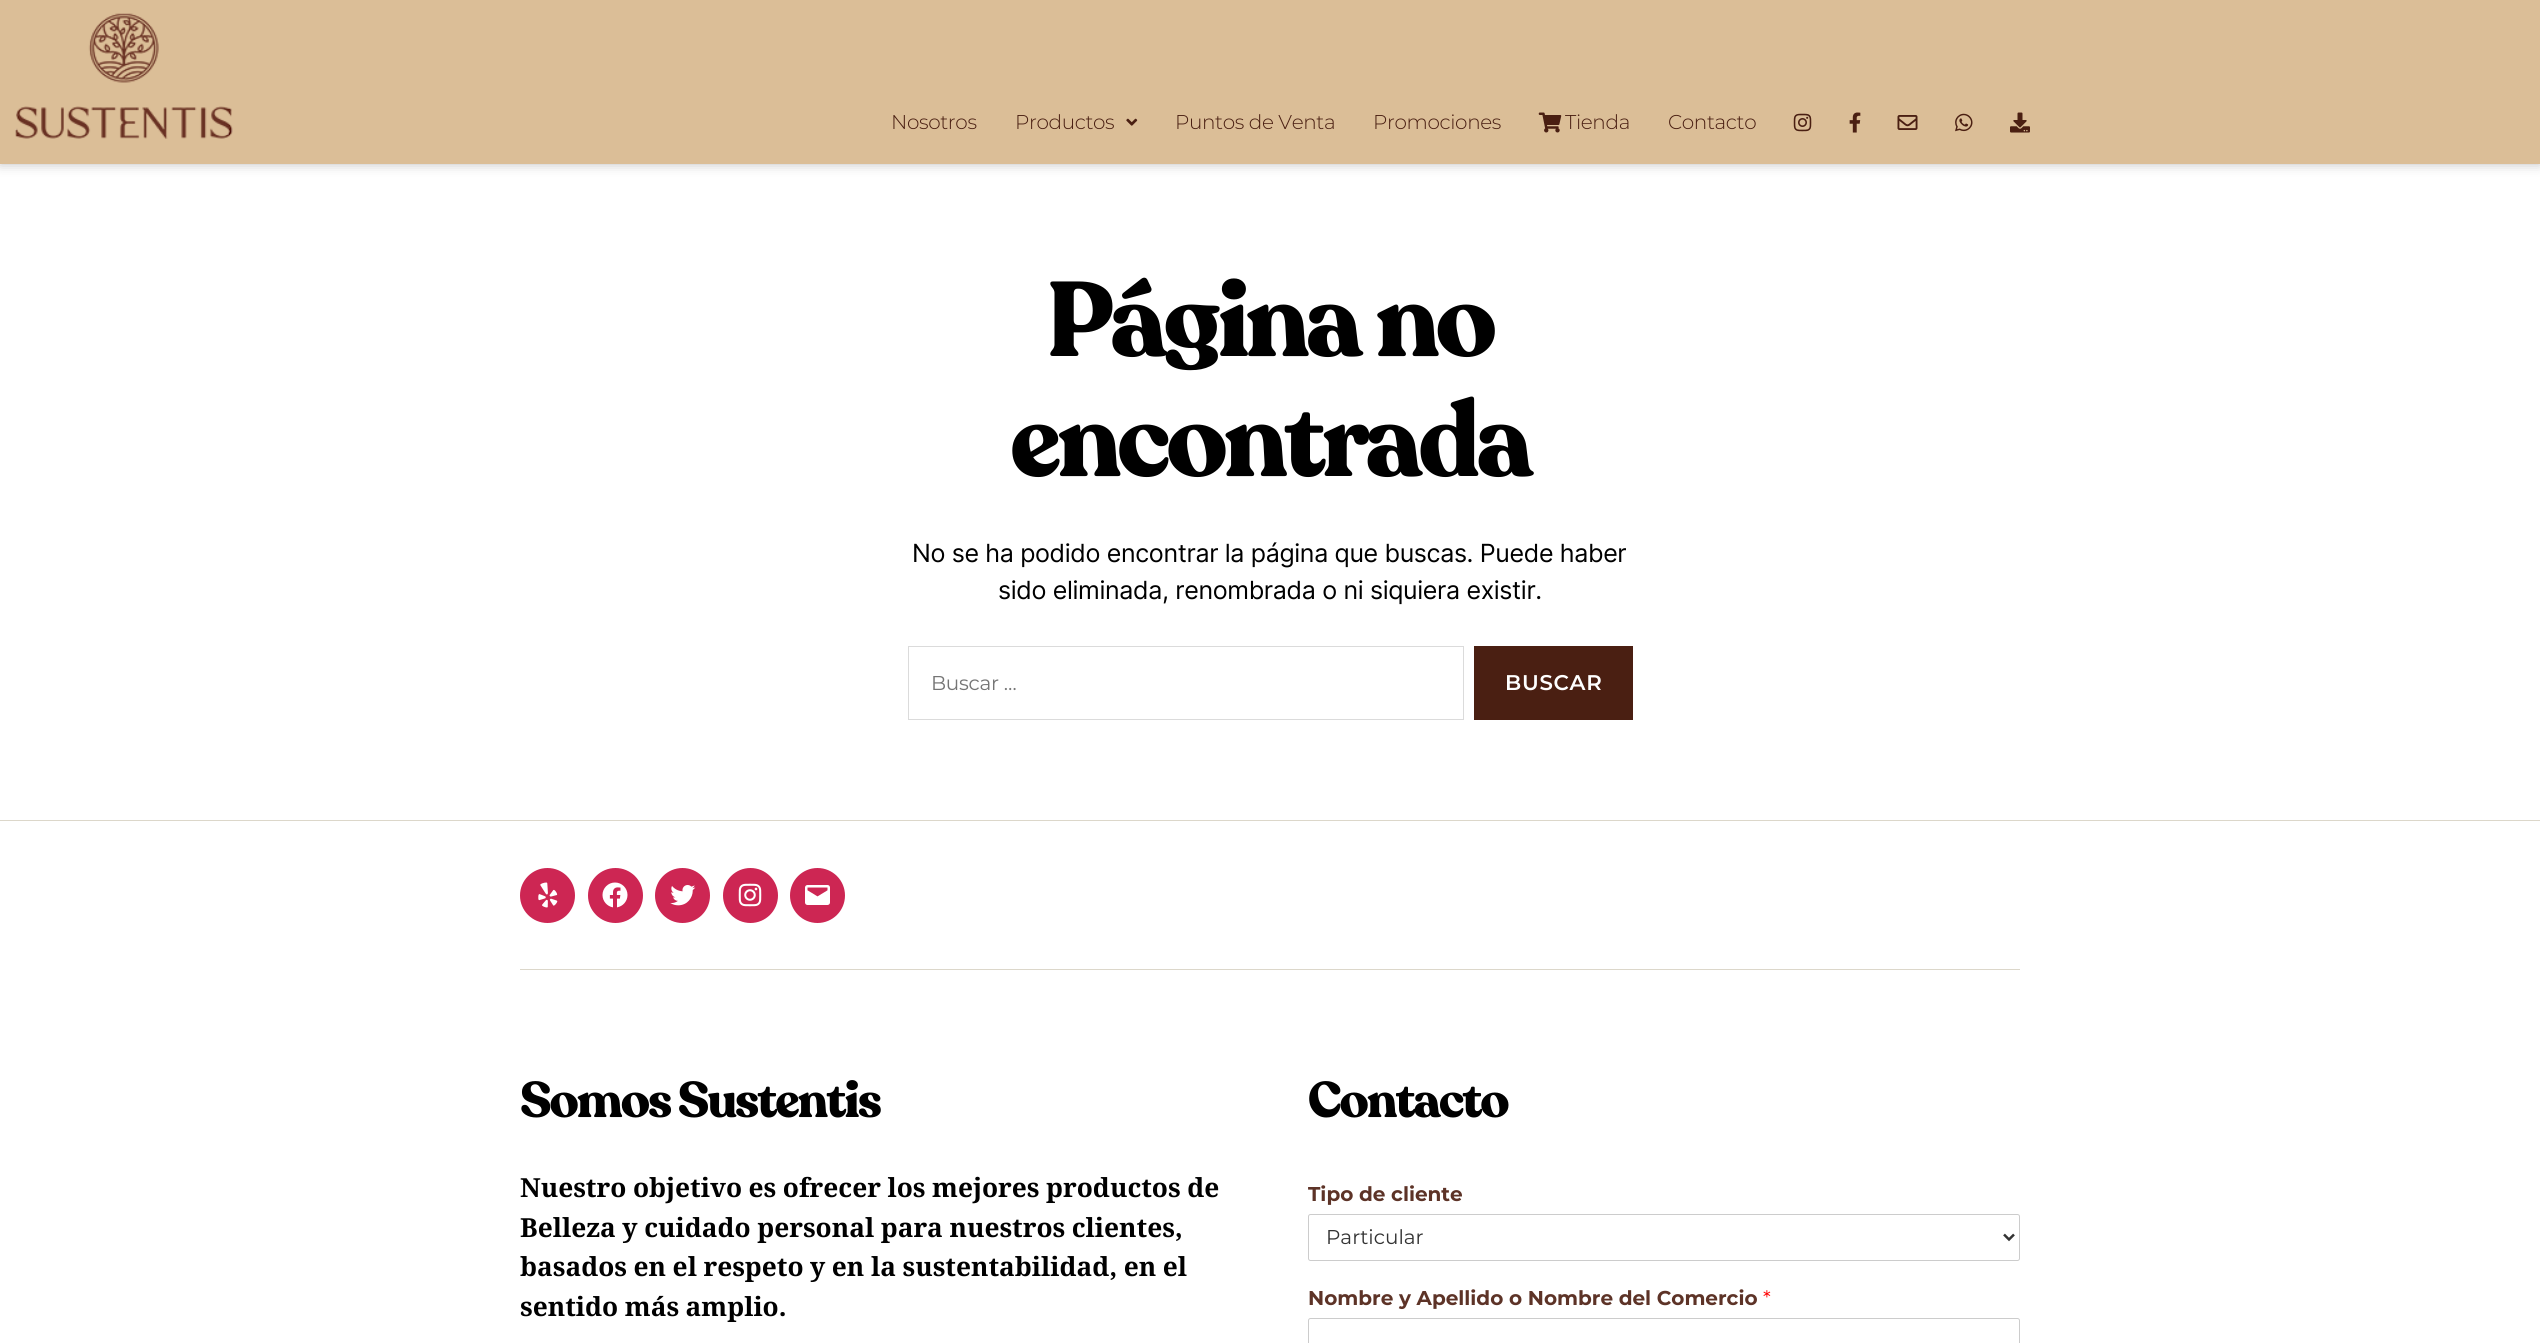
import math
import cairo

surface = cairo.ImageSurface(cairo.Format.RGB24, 2540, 1343)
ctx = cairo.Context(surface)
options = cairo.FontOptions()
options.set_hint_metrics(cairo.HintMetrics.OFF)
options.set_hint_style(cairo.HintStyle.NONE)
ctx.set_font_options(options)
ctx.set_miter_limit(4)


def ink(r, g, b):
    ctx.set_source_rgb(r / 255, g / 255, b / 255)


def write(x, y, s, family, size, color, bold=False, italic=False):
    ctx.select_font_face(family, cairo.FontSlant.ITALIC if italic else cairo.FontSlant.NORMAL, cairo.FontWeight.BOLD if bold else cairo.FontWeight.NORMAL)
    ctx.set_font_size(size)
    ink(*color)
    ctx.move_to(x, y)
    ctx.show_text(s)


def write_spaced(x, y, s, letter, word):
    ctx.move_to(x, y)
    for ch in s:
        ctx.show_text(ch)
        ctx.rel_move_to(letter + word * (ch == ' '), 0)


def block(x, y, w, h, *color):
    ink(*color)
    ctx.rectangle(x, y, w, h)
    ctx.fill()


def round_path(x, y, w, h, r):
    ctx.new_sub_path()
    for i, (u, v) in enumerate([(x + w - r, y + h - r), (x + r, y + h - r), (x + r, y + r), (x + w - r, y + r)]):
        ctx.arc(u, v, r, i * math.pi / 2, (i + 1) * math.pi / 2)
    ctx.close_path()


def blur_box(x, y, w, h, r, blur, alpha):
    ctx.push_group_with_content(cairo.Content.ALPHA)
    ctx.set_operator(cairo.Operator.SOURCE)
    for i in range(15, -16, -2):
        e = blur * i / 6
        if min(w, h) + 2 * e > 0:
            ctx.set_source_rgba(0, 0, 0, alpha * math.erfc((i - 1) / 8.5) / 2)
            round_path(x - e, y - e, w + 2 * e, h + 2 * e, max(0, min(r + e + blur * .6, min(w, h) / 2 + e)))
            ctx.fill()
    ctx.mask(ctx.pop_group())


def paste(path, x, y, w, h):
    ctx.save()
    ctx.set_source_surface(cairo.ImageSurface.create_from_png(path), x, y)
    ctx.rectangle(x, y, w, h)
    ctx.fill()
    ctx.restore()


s1 = dict(family="Montserrat", size=20, color=(93, 51, 39), bold=True)
s2 = dict(family="Montserrat Thin", size=20, color=(51, 51, 51))
s3 = dict(family="Montserrat Thin", size=20, color=(255, 0, 0))

ink(255, 255, 255)
ctx.paint()
ink(0, 0, 0)
blur_box(0, 0, 2540, 164, 0, 6, 0.25)
block(0, 0, 2540, 164, 219, 190, 151)
paste("pic1.png", 15, 13, 218, 126)
ctx.select_font_face("Montserrat Light")
ctx.set_font_size(20)
ink(74, 31, 18)
write_spaced(891, 129, "Nosotros", -0.35, 0)
write_spaced(1015, 129, "Productos", -0.35, 0)
paste("pic2.png", 1126, 118, 12, 8)
write_spaced(1175, 129, "Puntos de Venta", -0.35, 0)
write_spaced(1373, 129, "Promociones", -0.35, 0)
paste("pic3.png", 1538, 112, 24, 21)
write_spaced(1565, 129, "Tienda", -0.35, 0)
write_spaced(1668, 129, "Contacto", -0.35, 0)
paste("pic4.png", 1793, 113, 19, 19)
paste("pic5.png", 1849, 112, 12, 21)
paste("pic6.png", 1897, 115, 21, 15)
paste("pic7.png", 1955, 113, 18, 19)
paste("pic8.png", 2010, 112, 20, 21)
ctx.select_font_face("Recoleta", cairo.FontSlant.NORMAL, cairo.FontWeight.BOLD)
ctx.set_font_size(105)
ink(0, 0, 0)
write_spaced(1046, 356, "Página no", -4.4, 0)
write_spaced(1010, 476, "encontrada", -4.4, 0)
ctx.select_font_face("Inter")
ctx.set_font_size(25)
write_spaced(912, 562, "No se ha podido encontrar la página que buscas. Puede haber", -0.35, 0)
write_spaced(998, 599, "sido eliminada, renombrada o ni siquiera existir.", -0.35, 0)
ctx.rectangle(908.5, 646.5, 555, 73)
ink(219, 219, 219)
ctx.set_line_width(1)
ctx.stroke()
ctx.select_font_face("Montserrat Thin")
ctx.set_font_size(20)
ink(117, 117, 117)
write_spaced(931, 690, "Buscar …", -0.25, 0)
block(1474, 646, 159, 74, 74, 31, 18)
ctx.select_font_face("Montserrat SemiBold")
ctx.set_font_size(21.25)
ink(255, 255, 255)
write_spaced(1505, 690, "BUSCAR", 0.75, 0)
block(0, 820, 2540, 1, 220, 215, 202)
block(520, 969, 1500, 1, 220, 215, 202)
ink(205, 38, 83)
ctx.new_path()
ctx.arc(547.5, 895.5, 27.5, 0, 2 * math.pi)
ctx.fill()
paste("pic9.png", 538, 882, 20, 26)
ctx.arc(615.5, 895.5, 27.5, 0, 2 * math.pi)
ctx.fill()
paste("pic10.png", 602, 882, 26, 26)
ctx.arc(682.5, 895.5, 27.5, 0, 2 * math.pi)
ctx.fill()
paste("pic11.png", 670, 885, 26, 21)
ctx.arc(750.5, 895.5, 27.5, 0, 2 * math.pi)
ctx.fill()
paste("pic12.png", 738, 883, 24, 24)
ctx.arc(817.5, 895.5, 27.5, 0, 2 * math.pi)
ctx.fill()
paste("pic13.png", 805, 885, 25, 20)
ctx.select_font_face("Recoleta", cairo.FontSlant.NORMAL, cairo.FontWeight.BOLD)
ctx.set_font_size(50)
ink(0, 0, 0)
write_spaced(520, 1117, "Somos Sustentis", -2.1, 0)
ctx.select_font_face("Noto Serif", cairo.FontSlant.NORMAL, cairo.FontWeight.BOLD)
ctx.set_font_size(26.25)
write_spaced(520, 1197, "Nuestro objetivo es ofrecer los mejores productos de", 0, -0.25)
write_spaced(520, 1237, "Belleza y cuidado personal para nuestros clientes,", 0, -0.25)
write_spaced(520, 1276, "basados en el respeto y en la sustentabilidad, en el", 0, -0.25)
write_spaced(520, 1316, "sentido más amplio.", 0, -0.25)
ctx.select_font_face("Recoleta", cairo.FontSlant.NORMAL, cairo.FontWeight.BOLD)
ctx.set_font_size(50)
write_spaced(1308, 1117, "Contacto", -2.1, 0)
write(1308, 1201, "Tipo de cliente", **s1)
round_path(1308.5, 1214.5, 711, 46, 2)
ink(204, 204, 204)
ctx.stroke()
ctx.new_path()
ctx.move_to(2004, 1234.5)
ctx.line_to(2009, 1239.5)
ctx.line_to(2014, 1234.5)
ink(51, 51, 51)
ctx.set_line_width(2.5)
ctx.stroke()
write(1326, 1244, "Particular", **s2)
write(1308, 1305, "Nombre y Apellido o Nombre del Comercio", **s1)
write(1763, 1305, "*", **s3)
round_path(1308.5, 1318.5, 711, 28, 2)
ink(204, 204, 204)
ctx.set_line_width(1)
ctx.stroke()
surface.write_to_png("screenshot.png")
